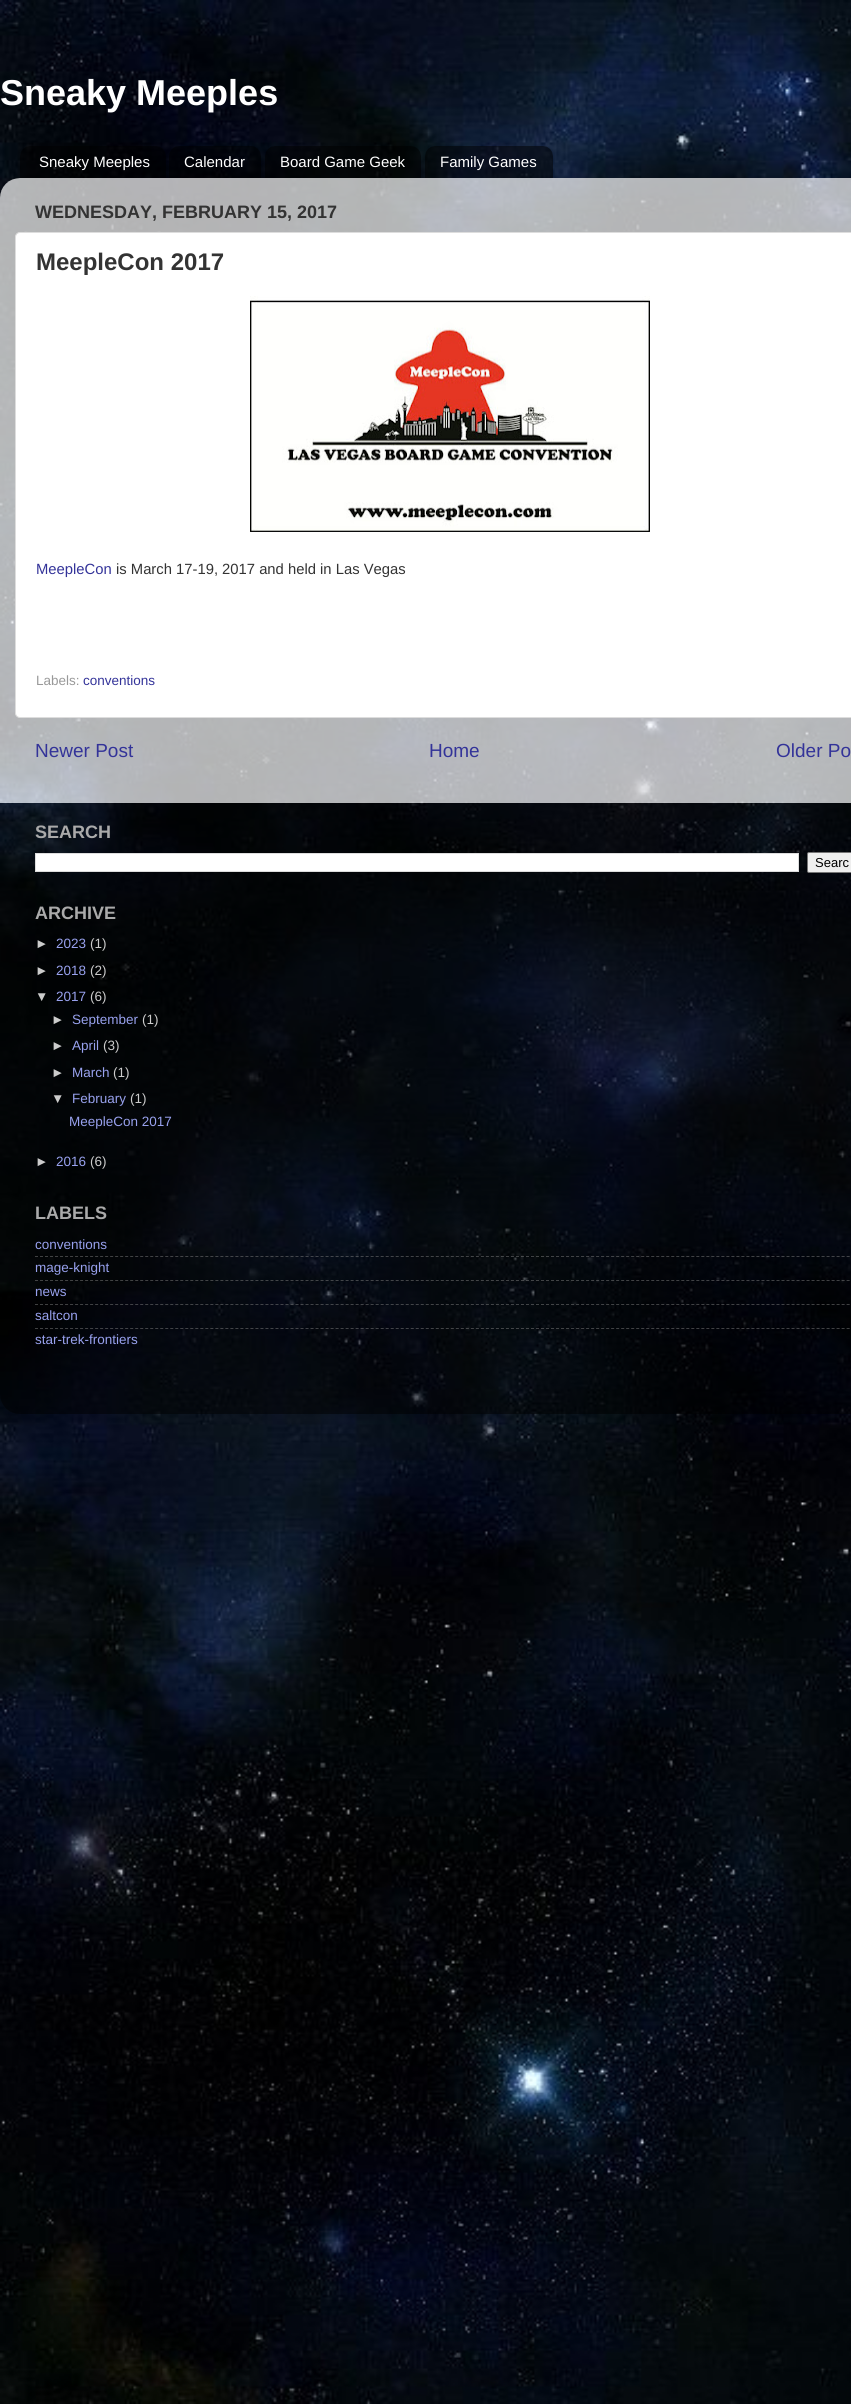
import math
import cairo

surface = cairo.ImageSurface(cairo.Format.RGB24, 851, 2404)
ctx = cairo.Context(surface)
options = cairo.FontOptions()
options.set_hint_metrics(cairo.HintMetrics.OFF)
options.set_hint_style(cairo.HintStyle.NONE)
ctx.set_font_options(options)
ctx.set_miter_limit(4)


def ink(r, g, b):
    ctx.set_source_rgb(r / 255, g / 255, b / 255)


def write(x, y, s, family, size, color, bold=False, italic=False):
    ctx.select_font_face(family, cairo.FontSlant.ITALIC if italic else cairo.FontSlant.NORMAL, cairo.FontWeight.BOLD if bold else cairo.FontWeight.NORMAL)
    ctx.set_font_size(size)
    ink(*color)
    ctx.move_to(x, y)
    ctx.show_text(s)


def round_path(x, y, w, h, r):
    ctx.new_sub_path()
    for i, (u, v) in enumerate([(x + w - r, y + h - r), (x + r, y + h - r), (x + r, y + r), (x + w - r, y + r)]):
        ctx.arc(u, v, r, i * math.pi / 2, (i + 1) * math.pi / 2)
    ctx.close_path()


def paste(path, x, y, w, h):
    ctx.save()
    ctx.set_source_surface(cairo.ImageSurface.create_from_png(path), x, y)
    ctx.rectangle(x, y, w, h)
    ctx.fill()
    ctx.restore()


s1 = dict(family="Liberation Sans", size=36, color=(255, 255, 255), bold=True)
s2 = dict(family="Liberation Sans", size=15, color=(255, 255, 255))
s3 = dict(family="Liberation Sans", size=18, color=(51, 51, 51), bold=True)
s4 = dict(family="Liberation Sans", size=24, color=(51, 51, 51), bold=True)
s5 = dict(family="Liberation Sans", size=14.8, color=(51, 51, 153))
s6 = dict(family="Liberation Sans", size=14.8, color=(51, 51, 51))
s7 = dict(family="Liberation Sans", size=13.5, color=(153, 153, 153))
s8 = dict(family="Liberation Sans", size=13.5, color=(51, 51, 153))
s9 = dict(family="Liberation Sans", size=19, color=(51, 51, 153))
s10 = dict(family="Liberation Sans", size=18, color=(170, 170, 170), bold=True)
s11 = dict(family="Liberation Sans", size=13, color=(0, 0, 0))
s12 = dict(family="Liberation Sans", size=13.5, color=(204, 204, 204))
s13 = dict(family="Liberation Sans", size=13.5, color=(152, 161, 238))

ink(255, 255, 255)
ctx.paint()
paste("pic1.png", 0, 0, 851, 2404)
write(0, 105, "Sneaky Meeples", **s1)
paste("pic2.png", 20, 146, 146, 32)
write(39, 167, "Sneaky Meeples", **s2)
paste("pic3.png", 169, 146, 92, 32)
write(184, 167, "Calendar", **s2)
paste("pic4.png", 265, 146, 156, 32)
write(280, 167, "Board Game Geek", **s2)
paste("pic5.png", 425, 146, 128, 32)
write(440, 167, "Family Games", **s2)
paste("pic6.png", 0, 178, 851, 625)
write(35, 218, "WEDNESDAY, FEBRUARY 15, 2017", **s3)
ink(255, 255, 255)
round_path(15.5, 232.5, 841, 485, 4.5)
ctx.fill_preserve()
ink(221, 221, 221)
ctx.set_line_width(1)
ctx.stroke()
write(36, 270, "MeepleCon 2017", **s4)
paste("pic7.png", 250, 296, 400, 236)
write(36, 574, "MeepleCon", **s5)
write(116, 574, "is March 17-19, 2017 and held in Las Vegas", **s6)
write(36, 685, "Labels:", **s7)
write(83, 685, "conventions", **s8)
write(35, 757, "Newer Post", **s9)
write(429, 757, "Home", **s9)
write(776, 757, "Older Po", **s9)
paste("pic8.png", 0, 803, 851, 611)
write(35, 838, "SEARCH", **s10)
ink(255, 255, 255)
ctx.rectangle(35.5, 853.5, 763, 18)
ctx.fill_preserve()
ink(221, 221, 221)
ctx.stroke()
ink(239, 239, 239)
round_path(807.5, 852.5, 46, 20, 1.5)
ctx.fill_preserve()
ink(118, 118, 118)
ctx.stroke()
write(815, 867, "Searc", **s11)
write(35, 919, "ARCHIVE", **s10)
write(35, 948, "►", **s12)
write(56, 948, "2023", **s13)
write(90, 948, "(1)", **s12)
write(35, 975, "►", **s12)
write(56, 975, "2018", **s13)
write(90, 975, "(2)", **s12)
write(35, 1001, "▼", **s12)
write(56, 1001, "2017", **s13)
write(90, 1001, "(6)", **s12)
write(51, 1024, "►", **s12)
write(72, 1024, "September", **s13)
write(142, 1024, "(1)", **s12)
write(51, 1050, "►", **s12)
write(72, 1050, "April", **s13)
write(103, 1050, "(3)", **s12)
write(51, 1077, "►", **s12)
write(72, 1077, "March", **s13)
write(113, 1077, "(1)", **s12)
write(51, 1103, "▼", **s12)
write(72, 1103, "February", **s13)
write(130, 1103, "(1)", **s12)
write(69, 1126, "MeepleCon 2017", **s13)
write(35, 1166, "►", **s12)
write(56, 1166, "2016", **s13)
write(90, 1166, "(6)", **s12)
write(35, 1219, "LABELS", **s10)
write(35, 1249, "conventions", **s13)
ctx.new_path()
ctx.move_to(35, 1256.5)
ctx.line_to(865, 1256.5)
ctx.set_source_rgba(0.502, 0.502, 0.502, 0.5)
ctx.set_dash([3, 2.01])
ctx.stroke()
write(35, 1272, "mage-knight", **s13)
ctx.new_path()
ctx.move_to(35, 1280.5)
ctx.line_to(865, 1280.5)
ctx.set_source_rgba(0.502, 0.502, 0.502, 0.5)
ctx.stroke()
write(35, 1296, "news", **s13)
ctx.new_path()
ctx.move_to(35, 1304.5)
ctx.line_to(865, 1304.5)
ctx.set_source_rgba(0.502, 0.502, 0.502, 0.5)
ctx.stroke()
write(35, 1320, "saltcon", **s13)
ctx.new_path()
ctx.move_to(35, 1328.5)
ctx.line_to(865, 1328.5)
ctx.set_source_rgba(0.502, 0.502, 0.502, 0.5)
ctx.stroke()
write(35, 1344, "star-trek-frontiers", **s13)
surface.write_to_png("screenshot.png")
